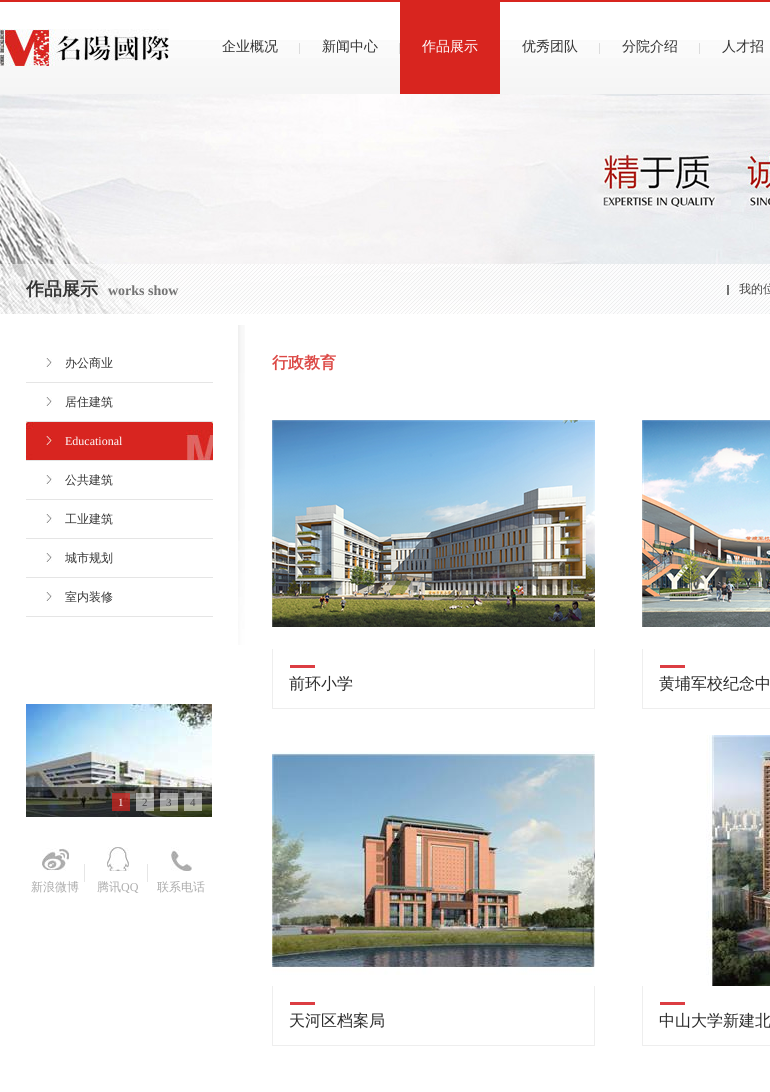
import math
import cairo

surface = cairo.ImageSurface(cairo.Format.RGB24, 770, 1092)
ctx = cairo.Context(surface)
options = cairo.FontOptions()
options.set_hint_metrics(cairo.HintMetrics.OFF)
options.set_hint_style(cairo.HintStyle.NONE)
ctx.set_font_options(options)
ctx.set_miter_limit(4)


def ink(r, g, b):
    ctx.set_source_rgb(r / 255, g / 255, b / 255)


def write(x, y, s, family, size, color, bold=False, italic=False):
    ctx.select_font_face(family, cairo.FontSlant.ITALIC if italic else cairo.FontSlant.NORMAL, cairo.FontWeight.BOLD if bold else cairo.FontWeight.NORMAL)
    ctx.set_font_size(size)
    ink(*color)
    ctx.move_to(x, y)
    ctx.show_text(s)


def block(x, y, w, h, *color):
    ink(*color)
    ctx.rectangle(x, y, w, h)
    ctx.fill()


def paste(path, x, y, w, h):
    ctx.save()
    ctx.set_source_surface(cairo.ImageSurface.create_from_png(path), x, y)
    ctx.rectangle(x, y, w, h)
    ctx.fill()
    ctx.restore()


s1 = dict(family="WenQuanYi Zen Hei Medium", size=14, color=(51, 51, 51))
s2 = dict(family="WenQuanYi Zen Hei Medium", size=14, color=(255, 255, 255))
s3 = dict(family="WenQuanYi Zen Hei", size=18, color=(51, 51, 51), bold=True)
s4 = dict(family="Liberation Serif", size=14, color=(115, 115, 115), bold=True)
s5 = dict(family="WenQuanYi Zen Hei Medium", size=12, color=(70, 70, 70))
s6 = dict(family="WenQuanYi Zen Hei Medium", size=12, color=(51, 51, 51))
s7 = dict(family="Liberation Serif", size=12, color=(255, 255, 255))
s8 = dict(family="Liberation Serif", size=11, color=(255, 255, 255))
s9 = dict(family="Liberation Serif", size=11, color=(70, 70, 70))
s10 = dict(family="WenQuanYi Zen Hei Medium", size=12, color=(171, 171, 171))
s11 = dict(family="Liberation Serif", size=12, color=(171, 171, 171))
s12 = dict(family="WenQuanYi Zen Hei", size=16, color=(220, 73, 70), bold=True)
s13 = dict(family="WenQuanYi Zen Hei Medium", size=16, color=(42, 42, 42))

ink(255, 255, 255)
ctx.paint()
block(0, 0, 770, 2, 216, 37, 31)
paste("pic1.png", 0, 40, 770, 54)
paste("pic2.png", 0, 29, 169, 37)
block(299, 43, 1, 11, 220, 220, 220)
write(222, 51, "企业概况", **s1)
block(399, 43, 1, 11, 220, 220, 220)
write(322, 51, "新闻中心", **s1)
block(400, 2, 100, 92, 216, 37, 31)
write(422, 51, "作品展示", **s2)
block(599, 43, 1, 11, 220, 220, 220)
write(522, 51, "优秀团队", **s1)
block(699, 43, 1, 11, 220, 220, 220)
write(622, 51, "分院介绍", **s1)
write(722, 51, "人才招", **s1)
paste("pic3.png", 0, 94, 770, 220)
paste("pic4.png", 0, 264, 770, 50)
write(26, 295, "作品展示", **s3)
write(108, 295, "works show", **s4)
paste("pic5.png", 727, 285, 2, 10)
write(739, 293, "我的位", **s5)
block(26, 382, 187, 1, 229, 229, 229)
paste("pic6.png", 46, 358, 6, 9)
write(65, 367, "办公商业", **s6)
block(26, 421, 187, 1, 229, 229, 229)
paste("pic6.png", 46, 397, 6, 9)
write(65, 406, "居住建筑", **s6)
paste("pic7.png", 26, 422, 187, 38)
block(26, 460, 187, 1, 229, 229, 229)
paste("pic8.png", 46, 436, 6, 9)
write(65, 445, "Educational", **s7)
block(26, 499, 187, 1, 229, 229, 229)
paste("pic6.png", 46, 475, 6, 9)
write(65, 484, "公共建筑", **s6)
block(26, 538, 187, 1, 229, 229, 229)
paste("pic6.png", 46, 514, 6, 9)
write(65, 523, "工业建筑", **s6)
block(26, 577, 187, 1, 229, 229, 229)
paste("pic6.png", 46, 553, 6, 9)
write(65, 562, "城市规划", **s6)
block(26, 616, 187, 1, 229, 229, 229)
paste("pic6.png", 46, 592, 6, 9)
write(65, 601, "室内装修", **s6)
paste("pic9.png", 26, 704, 186, 113)
ctx.set_source_rgba(0, 0, 0, 0.5)
ctx.rectangle(26, 787, 186, 30)
ctx.fill()
ctx.set_source_rgba(0.851, 0.145, 0.122, 0.7)
ctx.rectangle(112, 793, 18, 18)
ctx.fill()
write(118, 806, "1", **s8)
ctx.set_source_rgba(1, 1, 1, 0.55)
ctx.rectangle(136, 793, 18, 18)
ctx.fill()
write(142, 806, "2", **s9)
ctx.set_source_rgba(1, 1, 1, 0.55)
ctx.rectangle(160, 793, 18, 18)
ctx.fill()
write(166, 806, "3", **s9)
ctx.set_source_rgba(1, 1, 1, 0.55)
ctx.rectangle(184, 793, 18, 18)
ctx.fill()
write(190, 806, "4", **s9)
block(84, 864, 1, 18, 230, 230, 230)
paste("pic10.png", 42, 848, 27, 23)
write(31, 891, "新浪微博", **s10)
block(147, 864, 1, 18, 230, 230, 230)
paste("pic11.png", 107, 847, 22, 24)
write(97, 891, "腾讯", **s10)
write(121, 891, "QQ", **s11)
paste("pic12.png", 171, 847, 21, 24)
write(157, 891, "联系电话", **s10)
paste("pic13.png", 238, 325, 7, 320)
write(272, 368, "行政教育", **s12)
paste("pic14.png", 272, 420, 323, 207)
block(290, 665, 25, 3, 220, 61, 66)
block(594, 649, 1, 60, 238, 238, 238)
block(272, 708, 323, 1, 238, 238, 238)
block(272, 649, 1, 60, 238, 238, 238)
write(289, 689, "前环小学", **s13)
paste("pic15.png", 642, 420, 128, 207)
block(660, 665, 25, 3, 220, 61, 66)
block(642, 708, 128, 1, 238, 238, 238)
block(642, 649, 1, 60, 238, 238, 238)
write(659, 689, "黄埔军校纪念中", **s13)
paste("pic16.png", 272, 751, 323, 224)
block(290, 1002, 25, 3, 220, 61, 66)
block(594, 986, 1, 60, 238, 238, 238)
block(272, 1045, 323, 1, 238, 238, 238)
block(272, 986, 1, 60, 238, 238, 238)
write(289, 1026, "天河区档案局", **s13)
paste("pic17.png", 706, 735, 64, 251)
block(660, 1002, 25, 3, 220, 61, 66)
block(642, 1045, 128, 1, 238, 238, 238)
block(642, 986, 1, 60, 238, 238, 238)
write(659, 1026, "中山大学新建北", **s13)
surface.write_to_png("screenshot.png")
